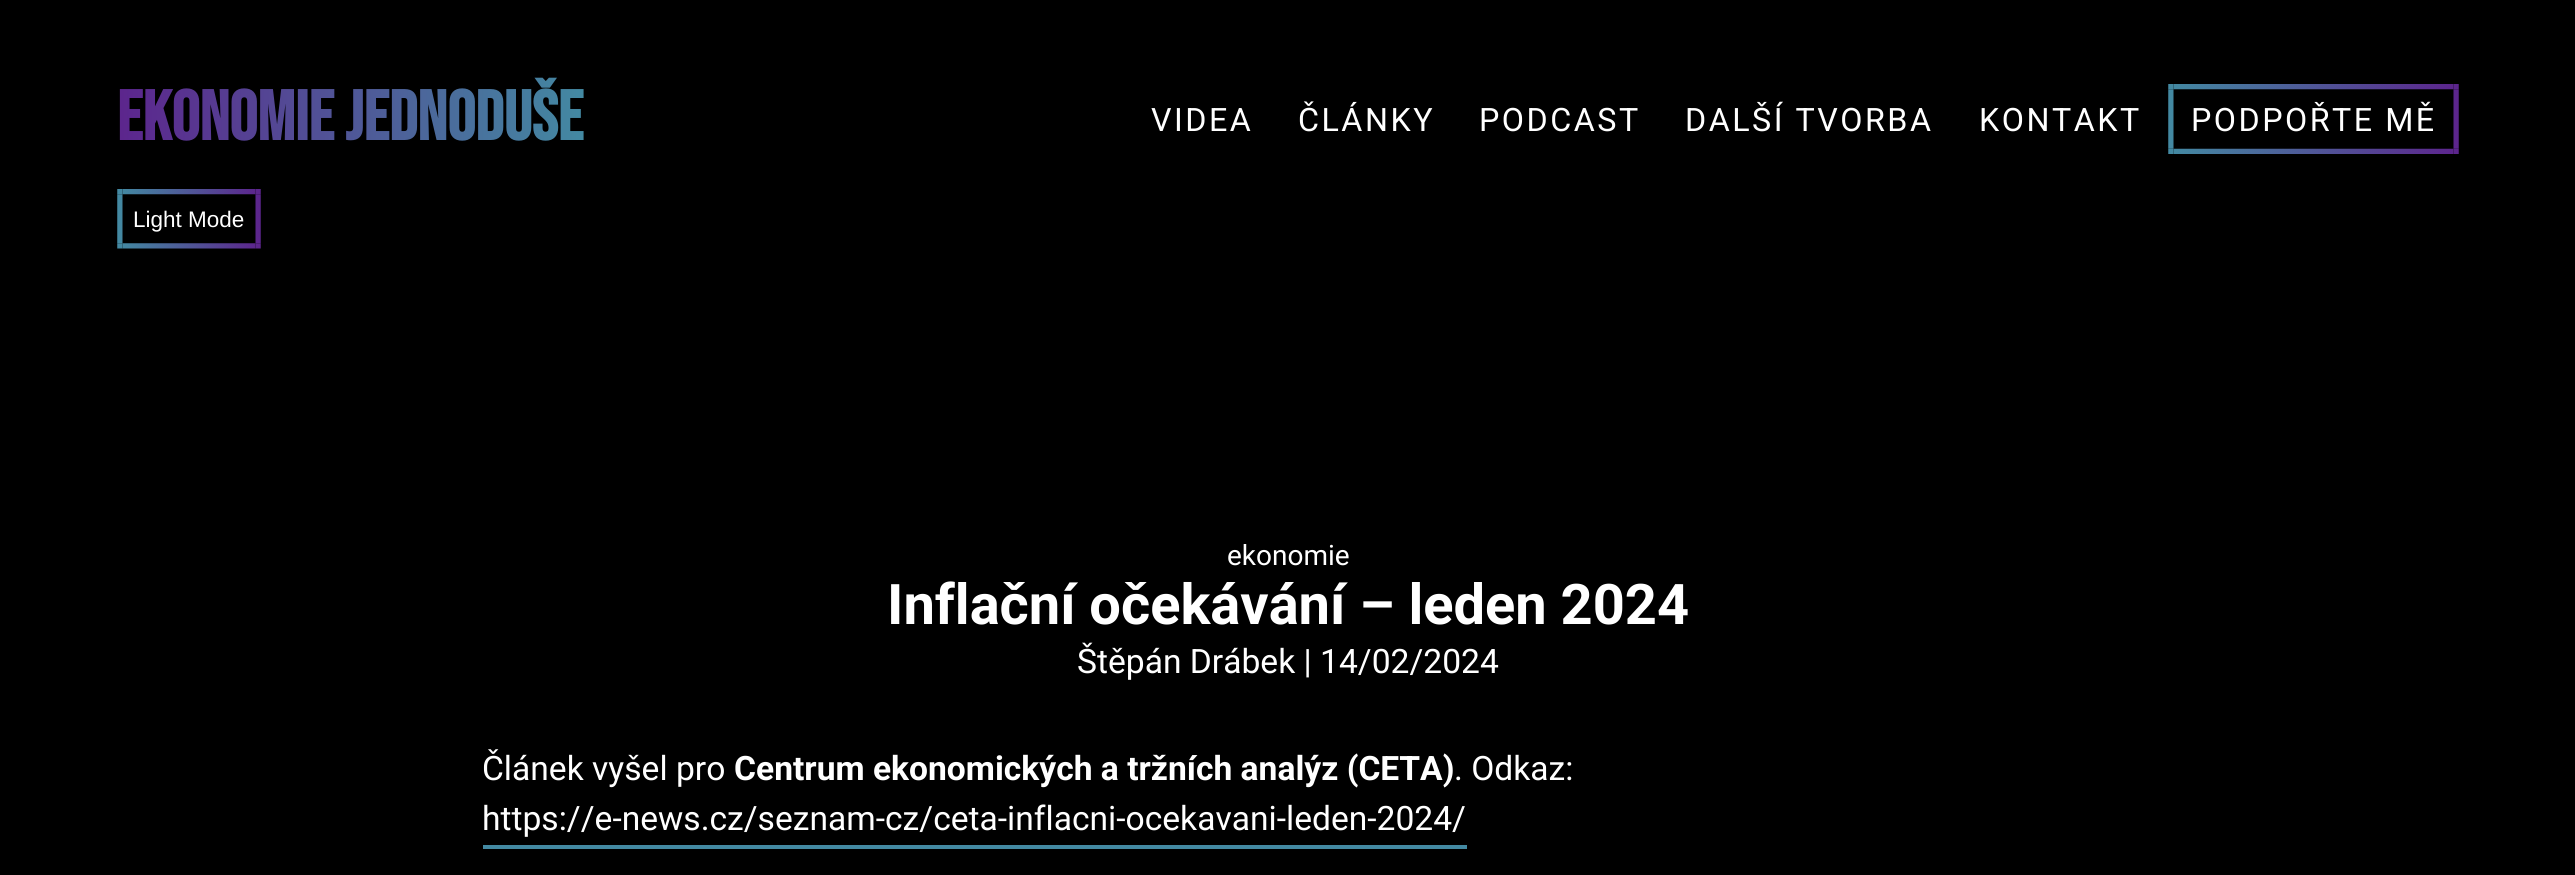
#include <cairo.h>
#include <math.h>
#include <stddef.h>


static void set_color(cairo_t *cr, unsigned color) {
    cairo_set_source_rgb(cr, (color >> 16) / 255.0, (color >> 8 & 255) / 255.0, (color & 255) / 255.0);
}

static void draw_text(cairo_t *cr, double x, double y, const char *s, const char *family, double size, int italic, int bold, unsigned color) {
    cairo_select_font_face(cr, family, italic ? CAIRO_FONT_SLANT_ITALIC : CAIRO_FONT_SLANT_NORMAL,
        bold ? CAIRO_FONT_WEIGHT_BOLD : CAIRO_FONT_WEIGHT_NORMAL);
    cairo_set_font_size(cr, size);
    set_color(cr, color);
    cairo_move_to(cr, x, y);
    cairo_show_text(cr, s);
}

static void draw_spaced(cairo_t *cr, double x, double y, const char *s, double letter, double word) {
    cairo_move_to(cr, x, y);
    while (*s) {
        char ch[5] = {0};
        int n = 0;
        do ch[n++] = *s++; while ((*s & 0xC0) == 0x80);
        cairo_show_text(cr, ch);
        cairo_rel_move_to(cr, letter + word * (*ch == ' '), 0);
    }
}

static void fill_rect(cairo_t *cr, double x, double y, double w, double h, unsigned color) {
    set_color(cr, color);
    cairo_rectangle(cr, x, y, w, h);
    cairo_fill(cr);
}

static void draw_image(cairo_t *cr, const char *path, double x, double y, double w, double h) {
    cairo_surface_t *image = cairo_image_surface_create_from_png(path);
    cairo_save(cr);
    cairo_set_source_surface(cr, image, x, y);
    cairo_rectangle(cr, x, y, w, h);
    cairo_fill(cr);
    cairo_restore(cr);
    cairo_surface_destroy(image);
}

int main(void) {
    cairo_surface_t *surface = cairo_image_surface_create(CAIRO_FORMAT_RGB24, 2575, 875);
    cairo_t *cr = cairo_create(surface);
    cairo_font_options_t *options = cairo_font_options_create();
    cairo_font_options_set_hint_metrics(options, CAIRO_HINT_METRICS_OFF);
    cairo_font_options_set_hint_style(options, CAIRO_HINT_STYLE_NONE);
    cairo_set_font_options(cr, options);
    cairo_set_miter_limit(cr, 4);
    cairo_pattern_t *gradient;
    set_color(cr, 0x000000);
    cairo_paint(cr);
    cairo_select_font_face(cr, "Bebas Neue", CAIRO_FONT_SLANT_NORMAL, CAIRO_FONT_WEIGHT_BOLD);
    cairo_set_font_size(cr, 70);
    gradient = cairo_pattern_create_linear(117, 119, 583, 119);
    cairo_pattern_add_color_stop_rgba(gradient, 0, 0.361, 0.145, 0.553, 1);
    cairo_pattern_add_color_stop_rgba(gradient, 1, 0.263, 0.537, 0.635, 1);
    cairo_set_source(cr, gradient);
    cairo_pattern_destroy(gradient);
    cairo_move_to(cr, 117, 140);
    cairo_show_text(cr, "Ekonomie Jednoduše");
    cairo_select_font_face(cr, "Roboto", CAIRO_FONT_SLANT_NORMAL, CAIRO_FONT_WEIGHT_NORMAL);
    cairo_set_font_size(cr, 32.25);
    set_color(cr, 0xFFFFFF);
    draw_spaced(cr, 1151, 131, "VIDEA", 2.5, 0);
    draw_spaced(cr, 1298, 131, "ČLÁNKY", 2.5, 0);
    draw_spaced(cr, 1479, 131, "PODCAST", 2.5, 0);
    draw_spaced(cr, 1685, 131, "DALŠÍ TVORBA", 2.5, 0);
    draw_spaced(cr, 1979, 131, "KONTAKT", 2.5, 0);
    draw_image(cr, "assets/img1.png", 2168, 84, 291, 70);
    draw_spaced(cr, 2191, 131, "PODPOŘTE MĚ", 2.5, 0);
    draw_image(cr, "assets/img2.png", 117, 189, 144, 60);
    draw_text(cr, 133, 227, "Light Mode", "Liberation Sans", 22.5, 0, 0, 0xFFFFFF);
    draw_text(cr, 1227, 565, "ekonomie", "Roboto", 28, 0, 0, 0xFFFFFF);
    draw_text(cr, 887, 624, "Inflační očekávání – leden 2024", "Roboto", 56, 0, 1, 0xFFFFFF);
    draw_text(cr, 1077, 673, "Štěpán Drábek | 14/02/2024", "Roboto", 33.6, 0, 0, 0xFFFFFF);
    draw_text(cr, 482, 780, "Článek vyšel pro", "Roboto", 33.6, 0, 0, 0xFFFFFF);
    draw_text(cr, 734, 780, "Centrum ekonomických a tržních analýz (CETA)", "Roboto", 33.6, 0, 1, 0xFFFFFF);
    draw_text(cr, 1454, 780, ". Odkaz:", "Roboto", 33.6, 0, 0, 0xFFFFFF);
    fill_rect(cr, 483, 845, 984, 4, 0x4389A2);
    draw_text(cr, 482, 830, "https://e-news.cz/seznam-cz/ceta-inflacni-ocekavani-leden-2024/", "Roboto", 33.6, 0, 0, 0xFFFFFF);
    cairo_surface_write_to_png(surface, "output.png");
    cairo_font_options_destroy(options);
    cairo_destroy(cr);
    cairo_surface_destroy(surface);
    return 0;
}
